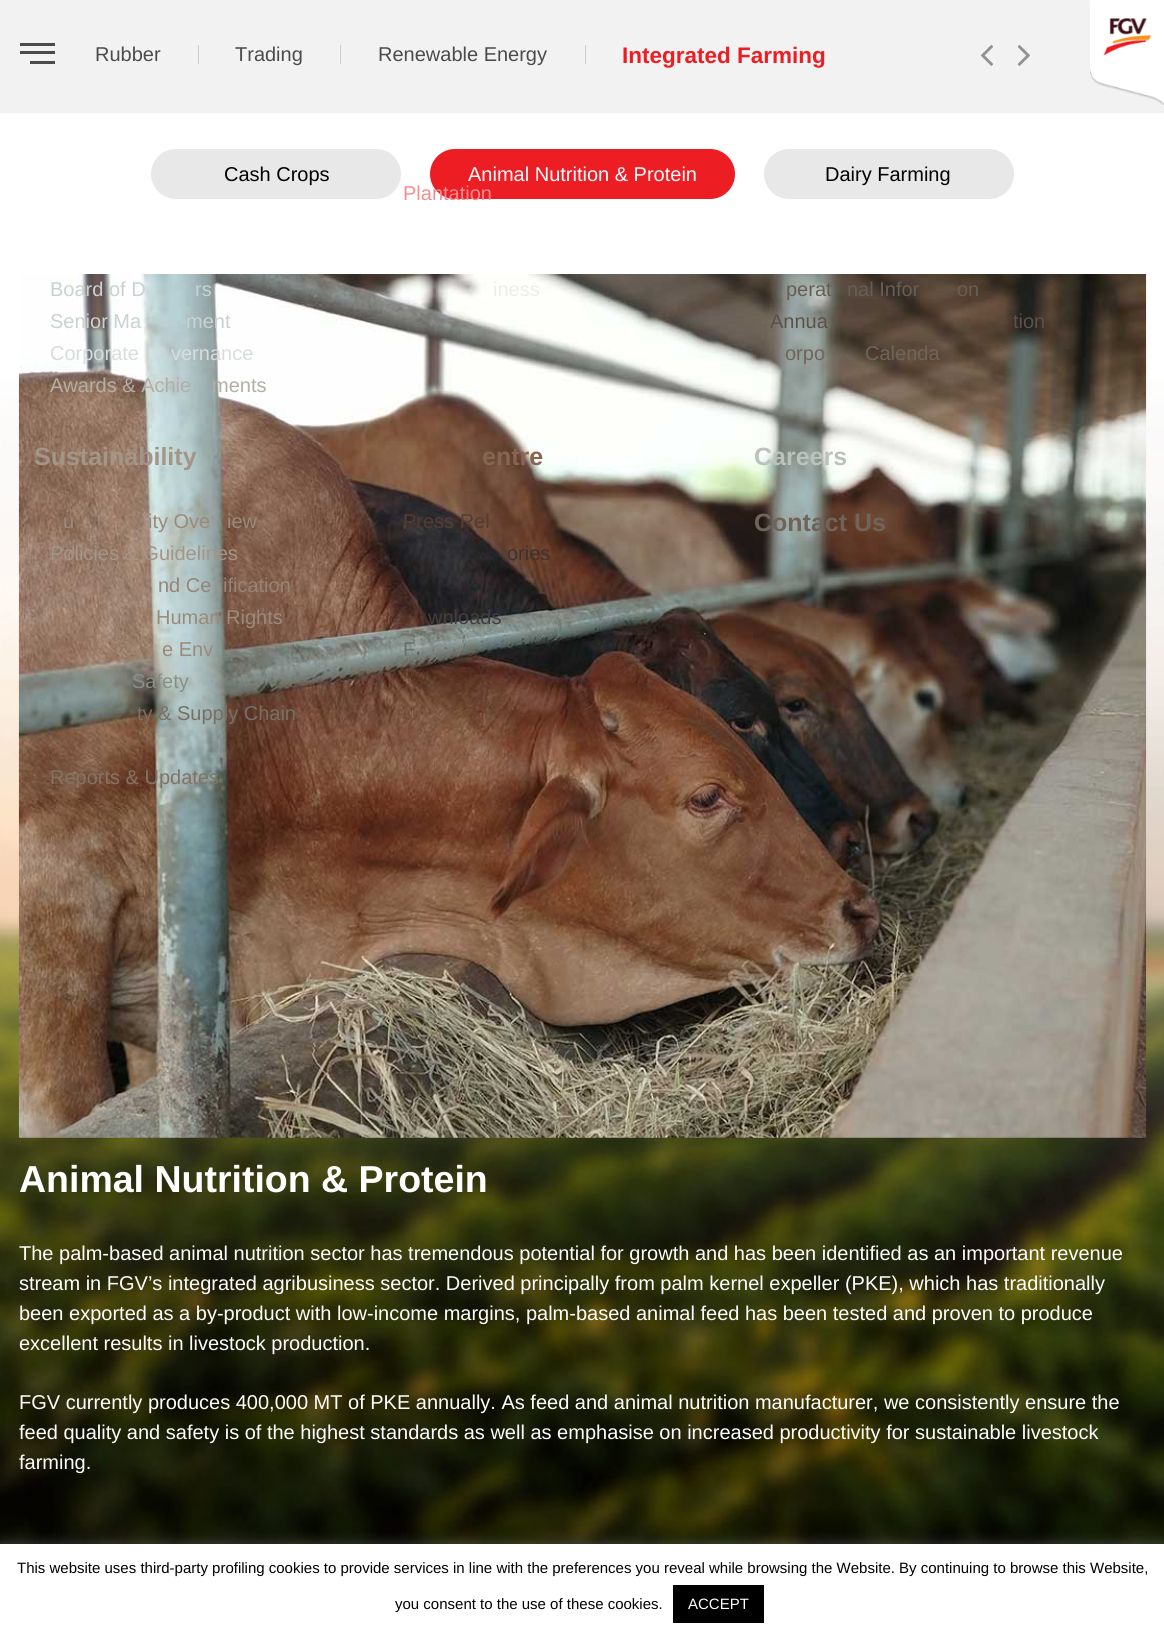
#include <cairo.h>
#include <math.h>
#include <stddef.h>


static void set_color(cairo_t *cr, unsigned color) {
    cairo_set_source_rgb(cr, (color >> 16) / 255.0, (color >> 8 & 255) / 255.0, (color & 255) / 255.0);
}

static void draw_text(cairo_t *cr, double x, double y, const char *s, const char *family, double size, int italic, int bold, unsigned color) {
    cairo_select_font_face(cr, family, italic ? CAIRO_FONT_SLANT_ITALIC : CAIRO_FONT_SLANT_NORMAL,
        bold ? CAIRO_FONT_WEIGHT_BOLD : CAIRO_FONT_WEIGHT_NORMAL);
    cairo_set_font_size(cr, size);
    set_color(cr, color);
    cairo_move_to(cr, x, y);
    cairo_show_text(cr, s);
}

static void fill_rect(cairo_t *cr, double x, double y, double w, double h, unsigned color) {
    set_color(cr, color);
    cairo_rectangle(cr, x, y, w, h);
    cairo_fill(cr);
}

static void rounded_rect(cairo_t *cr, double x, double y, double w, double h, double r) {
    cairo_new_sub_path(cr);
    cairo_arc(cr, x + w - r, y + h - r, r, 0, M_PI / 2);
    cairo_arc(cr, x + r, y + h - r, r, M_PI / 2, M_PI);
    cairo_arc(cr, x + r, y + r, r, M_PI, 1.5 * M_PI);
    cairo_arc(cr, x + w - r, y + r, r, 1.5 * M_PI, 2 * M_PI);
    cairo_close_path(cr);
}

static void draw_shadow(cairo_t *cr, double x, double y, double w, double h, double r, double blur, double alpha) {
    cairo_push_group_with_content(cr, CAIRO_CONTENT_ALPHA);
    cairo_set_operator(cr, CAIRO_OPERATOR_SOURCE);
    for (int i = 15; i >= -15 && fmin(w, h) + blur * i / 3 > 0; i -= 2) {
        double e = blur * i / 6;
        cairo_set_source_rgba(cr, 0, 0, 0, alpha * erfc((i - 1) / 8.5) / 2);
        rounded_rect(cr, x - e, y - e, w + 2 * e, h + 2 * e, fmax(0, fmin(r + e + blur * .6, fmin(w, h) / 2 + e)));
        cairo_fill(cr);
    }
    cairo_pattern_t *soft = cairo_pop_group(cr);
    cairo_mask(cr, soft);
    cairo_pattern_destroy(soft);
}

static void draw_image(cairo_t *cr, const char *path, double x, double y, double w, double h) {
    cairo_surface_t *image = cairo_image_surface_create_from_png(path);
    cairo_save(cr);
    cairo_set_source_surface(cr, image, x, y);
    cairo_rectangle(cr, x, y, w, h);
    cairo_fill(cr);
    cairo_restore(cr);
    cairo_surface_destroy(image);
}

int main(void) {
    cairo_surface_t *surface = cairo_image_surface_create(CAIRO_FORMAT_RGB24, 1164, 1643);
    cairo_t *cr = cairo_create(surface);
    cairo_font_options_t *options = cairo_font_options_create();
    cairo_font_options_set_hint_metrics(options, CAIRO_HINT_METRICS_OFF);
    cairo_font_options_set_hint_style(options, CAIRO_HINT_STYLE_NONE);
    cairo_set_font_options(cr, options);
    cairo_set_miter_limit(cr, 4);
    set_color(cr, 0xFFFFFF);
    cairo_paint(cr);
    fill_rect(cr, 0, 0, 1164, 113, 0xF2F2F2);
    draw_text(cr, 95, 61, "Rubber", "Liberation Sans", 20, 0, 0, 0x4B4B4B);
    fill_rect(cr, 198, 45, 1, 19, 0xCCCCCC);
    draw_text(cr, 235, 61, "Trading", "Liberation Sans", 20, 0, 0, 0x4B4B4B);
    fill_rect(cr, 340, 45, 1, 19, 0xCCCCCC);
    draw_text(cr, 378, 61, "Renewable Energy", "Liberation Sans", 20, 0, 0, 0x4B4B4B);
    fill_rect(cr, 585, 45, 1, 19, 0xCCCCCC);
    draw_text(cr, 622, 63, "Integrated Farming", "Liberation Sans", 22.5, 0, 1, 0xEC1D23);
    draw_image(cr, "assets/img1.png", 981, 45, 12, 21);
    draw_image(cr, "assets/img2.png", 1017, 45, 13, 21);
    draw_image(cr, "assets/img3.png", 0, 381, 1164, 1163);
    set_color(cr, 0xE8E8E8);
    rounded_rect(cr, 151, 149, 250, 50, 25);
    cairo_fill(cr);
    draw_text(cr, 224, 181, "Cash Crops", "Liberation Sans", 20, 0, 0, 0x000000);
    set_color(cr, 0xEC1D23);
    rounded_rect(cr, 430, 149, 305, 50, 25);
    cairo_fill(cr);
    draw_text(cr, 468, 181, "Animal Nutrition & Protein", "Liberation Sans", 20, 0, 0, 0xFFFFFF);
    set_color(cr, 0xE8E8E8);
    rounded_rect(cr, 764, 149, 250, 50, 25);
    cairo_fill(cr);
    draw_text(cr, 825, 181, "Dairy Farming", "Liberation Sans", 20, 0, 0, 0x000000);
    draw_image(cr, "assets/img4.png", 18, 274, 1129, 864);
    draw_text(cr, 19, 1192, "Animal Nutrition & Protein", "Liberation Sans", 37.5, 0, 1, 0xFFFFFF);
    draw_text(cr, 19, 1260, "The palm-based animal nutrition sector has tremendous potential for growth and has been identified as an important revenue", "Liberation Sans", 20, 0, 0, 0xFFFFFF);
    draw_text(cr, 19, 1290, "stream in FGV’s integrated agribusiness sector. Derived principally from palm kernel expeller (PKE), which has traditionally", "Liberation Sans", 20, 0, 0, 0xFFFFFF);
    draw_text(cr, 19, 1320, "been exported as a by-product with low-income margins, palm-based animal feed has been tested and proven to produce", "Liberation Sans", 20, 0, 0, 0xFFFFFF);
    draw_text(cr, 19, 1350, "excellent results in livestock production.", "Liberation Sans", 20, 0, 0, 0xFFFFFF);
    draw_text(cr, 19, 1409, "FGV currently produces 400,000 MT of PKE annually. As feed and animal nutrition manufacturer, we consistently ensure the", "Liberation Sans", 20, 0, 0, 0xFFFFFF);
    draw_text(cr, 19, 1439, "feed quality and safety is of the highest standards as well as emphasise on increased productivity for sustainable livestock", "Liberation Sans", 20, 0, 0, 0xFFFFFF);
    draw_text(cr, 19, 1469, "farming.", "Liberation Sans", 20, 0, 0, 0xFFFFFF);
    fill_rect(cr, 20, 43, 35, 3, 0x4B4B4B);
    fill_rect(cr, 20, 51, 35, 3, 0x4B4B4B);
    fill_rect(cr, 30, 61, 25, 3, 0x4B4B4B);
    draw_image(cr, "assets/img5.png", 1090, 0, 74, 105);
    draw_text(cr, 403, 200, "Plantation", "Liberation Sans", 20, 0, 0, 0xF58D91);
    draw_text(cr, 493, 296, "iness", "Liberation Sans", 20, 0, 0, 0xEDEDE9);
    draw_text(cr, 50, 296, "Board of D", "Liberation Sans", 20, 0, 0, 0xC9D1D3);
    draw_text(cr, 195, 296, "rs", "Liberation Sans", 20, 0, 0, 0xC9D1D3);
    draw_text(cr, 50, 328, "Senior Ma", "Liberation Sans", 20, 0, 0, 0xC9D1D3);
    draw_text(cr, 186, 328, "ment", "Liberation Sans", 20, 0, 0, 0xC9D1D3);
    draw_text(cr, 50, 360, "Corporate", "Liberation Sans", 20, 0, 0, 0xD7DDDE);
    draw_text(cr, 171, 360, "vernance", "Liberation Sans", 20, 0, 0, 0xD7DDDE);
    draw_text(cr, 50, 392, "Awards & Achie", "Liberation Sans", 20, 0, 0, 0xB3AEA6);
    draw_text(cr, 212, 392, "ments", "Liberation Sans", 20, 0, 0, 0xB3AEA6);
    draw_text(cr, 786, 296, "perat", "Liberation Sans", 20, 0, 0, 0x665E55);
    draw_text(cr, 847, 296, "nal Infor", "Liberation Sans", 20, 0, 0, 0x665E55);
    draw_text(cr, 957, 296, "on", "Liberation Sans", 20, 0, 0, 0x665E55);
    draw_text(cr, 770, 328, "Annua", "Liberation Sans", 20, 0, 0, 0x5C5146);
    draw_text(cr, 1013, 328, "tion", "Liberation Sans", 20, 0, 0, 0x5C5146);
    draw_text(cr, 785, 360, "orpo", "Liberation Sans", 20, 0, 0, 0x706459);
    draw_text(cr, 865, 360, "Calenda", "Liberation Sans", 20, 0, 0, 0x706459);
    draw_text(cr, 34, 465, "Sustainability", "Liberation Sans", 25, 0, 1, 0xA39588);
    draw_text(cr, 63, 528, "u", "Liberation Sans", 20, 0, 0, 0x9A8A7C);
    draw_text(cr, 148, 528, "ity Ove", "Liberation Sans", 20, 0, 0, 0x9A8A7C);
    draw_text(cr, 227, 528, "iew", "Liberation Sans", 20, 0, 0, 0x9A8A7C);
    draw_text(cr, 50, 560, "Policies & Guidelines", "Liberation Sans", 20, 0, 0, 0xA39588);
    draw_text(cr, 158, 592, "nd Ce", "Liberation Sans", 20, 0, 0, 0x978477);
    draw_text(cr, 223, 592, "ification", "Liberation Sans", 20, 0, 0, 0x978477);
    draw_text(cr, 156, 624, "Human Rights", "Liberation Sans", 20, 0, 0, 0x9A8A7C);
    draw_text(cr, 162, 656, "e Env", "Liberation Sans", 20, 0, 0, 0x9A8A7C);
    draw_text(cr, 132, 688, "Safety", "Liberation Sans", 20, 0, 0, 0x888F89);
    draw_text(cr, 137, 720, "ty & Supply Chain", "Liberation Sans", 20, 0, 0, 0x767066);
    draw_text(cr, 50, 784, "Reports & Updates", "Liberation Sans", 20, 0, 0, 0x827365);
    draw_text(cr, 482, 465, "entre", "Liberation Sans", 25, 0, 1, 0x866551);
    draw_text(cr, 403, 528, "Press Rel", "Liberation Sans", 20, 0, 0, 0x543C32);
    draw_text(cr, 507, 560, "ories", "Liberation Sans", 20, 0, 0, 0x40322E);
    draw_text(cr, 428, 624, "wnloads", "Liberation Sans", 20, 0, 0, 0x433E3C);
    draw_text(cr, 403, 656, "F", "Liberation Sans", 20, 0, 0, 0x676F6C);
    draw_text(cr, 754, 465, "Careers", "Liberation Sans", 25, 0, 1, 0xB9C2BB);
    draw_text(cr, 754, 531, "Contact Us", "Liberation Sans", 25, 0, 1, 0x706459);
    set_color(cr, 0xACABAB);
    draw_shadow(cr, 0, 1543, 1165, 100, 0, 6, 0.3);
    fill_rect(cr, 0, 1544, 1164, 99, 0xFFFFFF);
    draw_text(cr, 17, 1573, "This website uses third-party profiling cookies to provide services in line with the preferences you reveal while browsing the Website. By continuing to browse this Website,", "Liberation Sans", 15, 0, 0, 0x000000);
    draw_text(cr, 395, 1609, "you consent to the use of these cookies.", "Liberation Sans", 15, 0, 0, 0x000000);
    fill_rect(cr, 673, 1585, 91, 38, 0x000000);
    draw_text(cr, 688, 1609, "ACCEPT", "Liberation Sans", 15, 0, 0, 0xFFFFFF);
    cairo_surface_write_to_png(surface, "output.png");
    cairo_font_options_destroy(options);
    cairo_destroy(cr);
    cairo_surface_destroy(surface);
    return 0;
}
